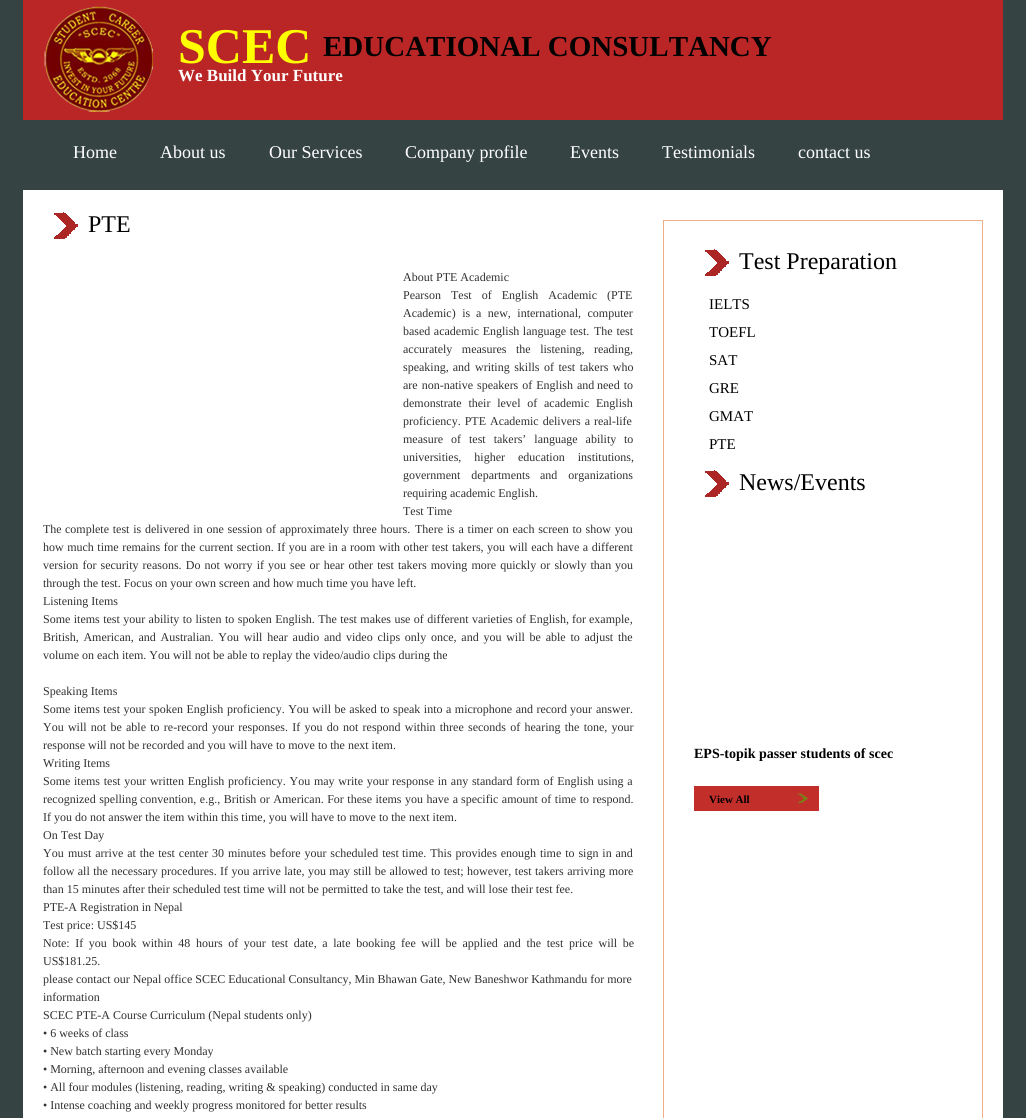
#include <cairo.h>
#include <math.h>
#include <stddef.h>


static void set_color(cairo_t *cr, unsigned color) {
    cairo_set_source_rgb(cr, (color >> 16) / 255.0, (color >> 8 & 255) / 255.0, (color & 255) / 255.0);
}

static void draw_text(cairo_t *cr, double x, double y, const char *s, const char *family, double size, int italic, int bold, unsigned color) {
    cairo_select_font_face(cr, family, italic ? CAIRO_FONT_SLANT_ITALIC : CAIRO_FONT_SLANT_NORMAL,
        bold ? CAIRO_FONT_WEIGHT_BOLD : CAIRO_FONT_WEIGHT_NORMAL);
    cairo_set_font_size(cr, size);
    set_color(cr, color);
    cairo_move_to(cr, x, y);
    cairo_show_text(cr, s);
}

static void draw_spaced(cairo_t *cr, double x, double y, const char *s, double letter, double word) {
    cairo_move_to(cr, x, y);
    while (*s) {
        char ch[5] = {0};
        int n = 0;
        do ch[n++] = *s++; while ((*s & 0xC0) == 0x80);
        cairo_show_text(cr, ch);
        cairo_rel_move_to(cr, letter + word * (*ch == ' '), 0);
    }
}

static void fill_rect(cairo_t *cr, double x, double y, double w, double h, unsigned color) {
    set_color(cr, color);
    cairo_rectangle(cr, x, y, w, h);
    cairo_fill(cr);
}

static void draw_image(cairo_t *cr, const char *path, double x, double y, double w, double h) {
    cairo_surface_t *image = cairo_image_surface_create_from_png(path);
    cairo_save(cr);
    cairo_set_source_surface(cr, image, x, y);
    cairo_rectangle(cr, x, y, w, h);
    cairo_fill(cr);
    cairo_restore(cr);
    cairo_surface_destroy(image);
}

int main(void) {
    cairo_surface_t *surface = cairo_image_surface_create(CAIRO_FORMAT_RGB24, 1026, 1118);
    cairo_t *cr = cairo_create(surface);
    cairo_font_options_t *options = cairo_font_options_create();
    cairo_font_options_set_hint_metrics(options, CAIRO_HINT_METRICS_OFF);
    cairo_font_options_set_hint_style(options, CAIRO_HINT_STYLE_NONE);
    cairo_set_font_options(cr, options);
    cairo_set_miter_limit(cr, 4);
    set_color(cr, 0x354443);
    cairo_paint(cr);
    fill_rect(cr, 23, 0, 980, 120, 0xBA2626);
    draw_image(cr, "assets/img1.png", 44, 6, 109, 106);
    draw_text(cr, 178, 63, "SCEC", "Liberation Serif", 50, 0, 1, 0xFFFF00);
    draw_text(cr, 323, 56, "EDUCATIONAL CONSULTANCY", "Liberation Serif", 29, 0, 1, 0x000000);
    draw_text(cr, 178, 81, "We Build Your Future", "Liberation Serif", 17, 0, 1, 0xFFFFFF);
    draw_text(cr, 73, 158, "Home", "Liberation Serif", 18, 0, 0, 0xFFFFFF);
    draw_text(cr, 160, 158, "About us", "Liberation Serif", 18, 0, 0, 0xFFFFFF);
    draw_text(cr, 269, 158, "Our Services", "Liberation Serif", 18, 0, 0, 0xFFFFFF);
    draw_text(cr, 405, 158, "Company profile", "Liberation Serif", 18, 0, 0, 0xFFFFFF);
    draw_text(cr, 570, 158, "Events", "Liberation Serif", 18, 0, 0, 0xFFFFFF);
    draw_text(cr, 662, 158, "Testimonials", "Liberation Serif", 18, 0, 0, 0xFFFFFF);
    draw_text(cr, 798, 158, "contact us", "Liberation Serif", 18, 0, 0, 0xFFFFFF);
    fill_rect(cr, 23, 190, 980, 928, 0xFFFFFF);
    draw_image(cr, "assets/img2.png", 54, 212, 24, 27);
    draw_text(cr, 88, 232, "PTE", "Liberation Serif", 24, 0, 0, 0x000000);
    draw_text(cr, 403, 281, "About PTE Academic", "Liberation Serif", 12, 0, 0, 0x303030);
    draw_spaced(cr, 403, 299, "Pearson Test of English Academic (PTE", 0, 7);
    draw_spaced(cr, 403, 317, "Academic) is", 0, 3.5);
    draw_spaced(cr, 476, 317, "a new, international, computer", 0, 3.5);
    draw_spaced(cr, 403, 335, "based academic English language test.", 0, 0.5);
    draw_spaced(cr, 594, 335, "The test", 0, 0.75);
    draw_spaced(cr, 403, 353, "accurately measures the listening, reading,", 0, 6.5);
    draw_spaced(cr, 403, 371, "speaking, and", 0, 1);
    draw_spaced(cr, 475, 371, "writing skills of test takers who", 0, 1.5);
    draw_spaced(cr, 403, 389, "are non-native speakers of English and", 0, 1);
    draw_spaced(cr, 597, 389, "need to", 0, 1);
    draw_spaced(cr, 403, 407, "demonstrate their level of academic English", 0, 3.75);
    draw_spaced(cr, 403, 425, "proficiency. PTE", 0, 1);
    draw_spaced(cr, 490, 425, "Academic delivers a real-life", 0, 1);
    draw_spaced(cr, 403, 443, "measure of test takers’ language ability", 0, 5);
    draw_text(cr, 624, 443, "to", "Liberation Serif", 12, 0, 0, 0x303030);
    draw_spaced(cr, 403, 461, "universities, higher education institutions,", 0, 10);
    draw_spaced(cr, 403, 479, "government departments", 0, 8);
    draw_spaced(cr, 540, 479, "and organizations", 0, 8);
    draw_text(cr, 403, 497, "requiring academic English.", "Liberation Serif", 12, 0, 0, 0x303030);
    draw_text(cr, 403, 515, "Test Time", "Liberation Serif", 12, 0, 0, 0x303030);
    draw_text(cr, 43, 533, "The", "Liberation Serif", 12, 0, 0, 0x303030);
    draw_spaced(cr, 65, 533, "complete test is delivered in one session of approximately three hours.", 0, 0.75);
    draw_spaced(cr, 415, 533, "There is a timer on each screen to show you", 0, 0.75);
    draw_spaced(cr, 43, 551, "how much time remains for", 0, 0.5);
    draw_spaced(cr, 181, 551, "the current section. If you are in a room with other test takers, you", 0, 0.5);
    draw_spaced(cr, 509, 551, "will each have a different", 0, 0.5);
    draw_spaced(cr, 43, 569, "version for security reasons. Do not worry if", 0, 1.1);
    draw_spaced(cr, 268, 569, "you see or hear other test takers moving more quickly or slowly than", 0, 1.1);
    draw_text(cr, 615, 569, "you", "Liberation Serif", 12, 0, 0, 0x303030);
    draw_text(cr, 43, 587, "through the test. Focus on your own screen and how much time you have left.", "Liberation Serif", 12, 0, 0, 0x303030);
    draw_text(cr, 43, 605, "Listening Items", "Liberation Serif", 12, 0, 0, 0x303030);
    draw_spaced(cr, 43, 623, "Some items test your ability to listen", 0, 0.4);
    draw_spaced(cr, 225, 623, "to spoken English. The test makes use of different varieties of English,", 0, 0.4);
    draw_text(cr, 572, 623, "for example,", "Liberation Serif", 12, 0, 0, 0x303030);
    draw_spaced(cr, 43, 641, "British, American, and Australian. You will hear audio and", 0, 1.75);
    draw_spaced(cr, 346, 641, "video clips only once, and you will be able to adjust the", 0, 1.75);
    draw_text(cr, 43, 659, "volume on each item. You will not be able to replay the video/audio clips during the", "Liberation Serif", 12, 0, 0, 0x303030);
    draw_text(cr, 43, 695, "Speaking Items", "Liberation Serif", 12, 0, 0, 0x303030);
    draw_spaced(cr, 43, 713, "Some items test your spoken English", 0, 0.5);
    draw_spaced(cr, 227, 713, "proficiency. You will be asked to speak into a microphone and record", 0, 0.5);
    draw_spaced(cr, 570, 713, "your answer.", 0, 1);
    draw_spaced(cr, 43, 731, "You will not be able to re-record your responses. If you do", 0, 1.25);
    draw_spaced(cr, 343, 731, "not respond within three seconds of hearing the tone, your", 0, 1.25);
    draw_text(cr, 43, 749, "response will not be recorded and you will have to move to the next item.", "Liberation Serif", 12, 0, 0, 0x303030);
    draw_text(cr, 43, 767, "Writing Items", "Liberation Serif", 12, 0, 0, 0x303030);
    draw_text(cr, 43, 785, "Some", "Liberation Serif", 12, 0, 0, 0x303030);
    draw_spaced(cr, 74, 785, "items test your written English proficiency. You may write your", 0, 0.75);
    draw_spaced(cr, 392, 785, "response in any standard form of English using a", 0, 0.75);
    draw_spaced(cr, 43, 803, "recognized spelling", 0, 0.5);
    draw_spaced(cr, 140, 803, "convention, e.g., British or American. For these items you have a", 0, 0.5);
    draw_spaced(cr, 461, 803, "specific amount of time to respond.", 0, 0.5);
    draw_text(cr, 43, 821, "If you do not answer the item within this time, you will have to move to the next item.", "Liberation Serif", 12, 0, 0, 0x303030);
    draw_text(cr, 43, 839, "On Test Day", "Liberation Serif", 12, 0, 0, 0x303030);
    draw_text(cr, 43, 857, "You", "Liberation Serif", 12, 0, 0, 0x303030);
    draw_spaced(cr, 68, 857, "must arrive at the test center 30 minutes before your scheduled test", 0, 0.9);
    draw_spaced(cr, 402, 857, "time. This provides enough time to sign in and", 0, 0.9);
    draw_spaced(cr, 43, 875, "follow all the necessary", 0, 0.4);
    draw_spaced(cr, 161, 875, "procedures. If you arrive late, you may still be allowed to test;", 0, 0.4);
    draw_spaced(cr, 467, 875, "however, test takers arriving more", 0, 0.5);
    draw_text(cr, 43, 893, "than 15 minutes after their scheduled test time will not be permitted to take the test, and will lose their test fee.", "Liberation Serif", 12, 0, 0, 0x303030);
    draw_text(cr, 43, 911, "PTE-A Registration in Nepal", "Liberation Serif", 12, 0, 0, 0x303030);
    draw_text(cr, 43, 929, "Test price: US$145", "Liberation Serif", 12, 0, 0, 0x303030);
    draw_spaced(cr, 43, 947, "Note: If you book within 48 hours of your test date, a late booking fee will be applied and the test price will be", 0, 2.6);
    draw_text(cr, 43, 965, "US$181.25.", "Liberation Serif", 12, 0, 0, 0x303030);
    draw_text(cr, 43, 983, "please contact our Nepal office SCEC Educational Consultancy, Min Bhawan Gate, New Baneshwor Kathmandu for more", "Liberation Serif", 12, 0, 0, 0x303030);
    draw_text(cr, 43, 1001, "information", "Liberation Serif", 12, 0, 0, 0x303030);
    draw_text(cr, 43, 1019, "SCEC PTE-A Course Curriculum (Nepal students only)", "Liberation Serif", 12, 0, 0, 0x303030);
    draw_text(cr, 43, 1037, "• 6 weeks of class", "Liberation Serif", 12, 0, 0, 0x303030);
    draw_text(cr, 43, 1055, "• New batch starting every Monday", "Liberation Serif", 12, 0, 0, 0x303030);
    draw_text(cr, 43, 1073, "• Morning, afternoon and evening classes available", "Liberation Serif", 12, 0, 0, 0x303030);
    draw_text(cr, 43, 1091, "• All four modules (listening, reading, writing & speaking) conducted in same day", "Liberation Serif", 12, 0, 0, 0x303030);
    draw_text(cr, 43, 1109, "• Intense coaching and weekly progress monitored for better results", "Liberation Serif", 12, 0, 0, 0x303030);
    cairo_rectangle(cr, 663.5, 220.5, 319, 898);
    set_color(cr, 0xEFAE86);
    cairo_set_line_width(cr, 1);
    cairo_stroke(cr);
    draw_image(cr, "assets/img2.png", 705, 249, 24, 27);
    draw_text(cr, 739, 269, "Test Preparation", "Liberation Serif", 24, 0, 0, 0x000000);
    draw_text(cr, 709, 309, "IELTS", "Liberation Serif", 15, 0, 0, 0x000000);
    draw_text(cr, 709, 337, "TOEFL", "Liberation Serif", 15, 0, 0, 0x000000);
    draw_text(cr, 709, 365, "SAT", "Liberation Serif", 15, 0, 0, 0x000000);
    draw_text(cr, 709, 393, "GRE", "Liberation Serif", 15, 0, 0, 0x000000);
    draw_text(cr, 709, 421, "GMAT", "Liberation Serif", 15, 0, 0, 0x000000);
    draw_text(cr, 709, 449, "PTE", "Liberation Serif", 15, 0, 0, 0x000000);
    draw_image(cr, "assets/img2.png", 705, 470, 24, 27);
    draw_text(cr, 739, 490, "News/Events", "Liberation Serif", 24, 0, 0, 0x000000);
    draw_text(cr, 694, 758, "EPS-topik passer students of scec", "Liberation Serif", 14, 0, 1, 0x000000);
    draw_image(cr, "assets/img3.png", 694, 786, 125, 25);
    draw_text(cr, 709, 803, "View All", "Liberation Serif", 11, 0, 1, 0x000000);
    cairo_surface_write_to_png(surface, "output.png");
    cairo_font_options_destroy(options);
    cairo_destroy(cr);
    cairo_surface_destroy(surface);
    return 0;
}
